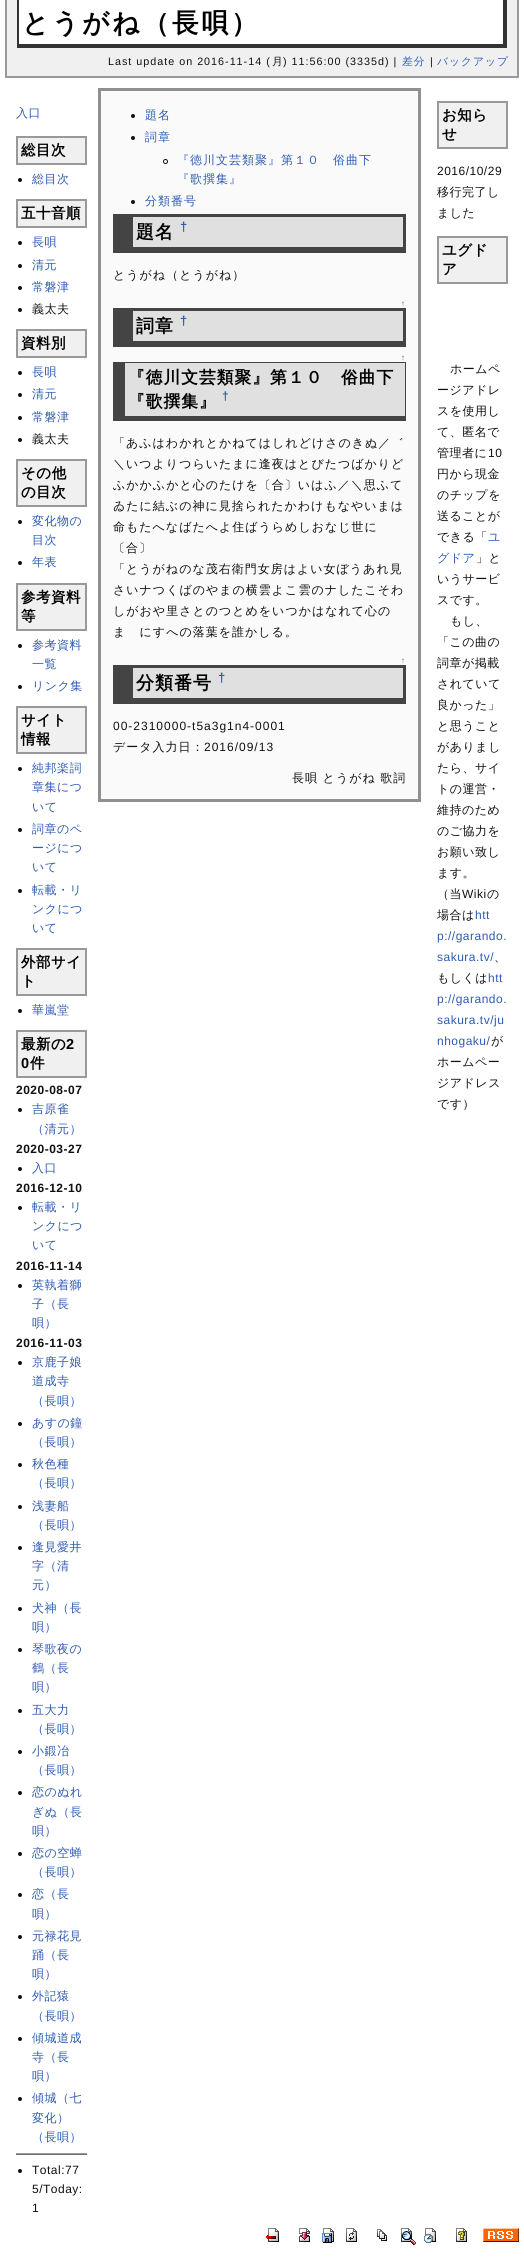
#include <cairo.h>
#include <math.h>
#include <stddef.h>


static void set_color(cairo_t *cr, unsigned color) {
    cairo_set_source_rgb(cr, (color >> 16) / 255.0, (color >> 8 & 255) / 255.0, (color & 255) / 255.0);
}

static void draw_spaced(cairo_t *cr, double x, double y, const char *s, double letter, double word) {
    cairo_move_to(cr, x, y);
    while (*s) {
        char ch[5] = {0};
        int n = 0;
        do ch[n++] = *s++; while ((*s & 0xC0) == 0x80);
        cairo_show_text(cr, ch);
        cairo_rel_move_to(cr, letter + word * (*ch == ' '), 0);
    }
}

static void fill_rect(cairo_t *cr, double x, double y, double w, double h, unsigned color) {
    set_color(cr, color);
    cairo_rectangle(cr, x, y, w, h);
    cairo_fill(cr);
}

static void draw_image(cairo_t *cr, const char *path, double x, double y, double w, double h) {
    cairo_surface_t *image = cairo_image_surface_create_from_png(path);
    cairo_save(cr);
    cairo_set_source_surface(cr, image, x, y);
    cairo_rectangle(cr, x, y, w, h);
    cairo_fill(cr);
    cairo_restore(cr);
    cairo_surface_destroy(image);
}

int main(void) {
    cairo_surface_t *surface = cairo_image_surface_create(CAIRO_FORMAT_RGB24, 524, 2261);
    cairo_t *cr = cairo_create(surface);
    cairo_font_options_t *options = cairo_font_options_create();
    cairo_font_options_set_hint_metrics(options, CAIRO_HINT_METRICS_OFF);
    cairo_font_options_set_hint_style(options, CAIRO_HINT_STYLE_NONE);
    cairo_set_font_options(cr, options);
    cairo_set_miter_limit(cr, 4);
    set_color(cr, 0xFFFFFF);
    cairo_paint(cr);
    set_color(cr, 0xF0F0F0);
    cairo_rectangle(cr, 6, -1, 512, 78);
    cairo_fill_preserve(cr);
    set_color(cr, 0x999999);
    cairo_stroke(cr);
    fill_rect(cr, 19, 0, 484, 44, 0xFFFFFF);
    fill_rect(cr, 503, 0, 4, 48, 0x333333);
    fill_rect(cr, 17, 44, 490, 4, 0x333333);
    fill_rect(cr, 17, 0, 2, 48, 0x333333);
    cairo_select_font_face(cr, "WenQuanYi Zen Hei", CAIRO_FONT_SLANT_NORMAL, CAIRO_FONT_WEIGHT_BOLD);
    cairo_set_font_size(cr, 26.5);
    set_color(cr, 0x000000);
    draw_spaced(cr, 22, 32, "とうがね（長唄）", 3, 0);
    cairo_select_font_face(cr, "Liberation Sans", CAIRO_FONT_SLANT_NORMAL, CAIRO_FONT_WEIGHT_NORMAL);
    cairo_set_font_size(cr, 10.75);
    set_color(cr, 0x101010);
    draw_spaced(cr, 108, 65, "Last update on 2016-11-14 (", 1, 0);
    cairo_select_font_face(cr, "WenQuanYi Zen Hei Medium", CAIRO_FONT_SLANT_NORMAL, CAIRO_FONT_WEIGHT_NORMAL);
    draw_spaced(cr, 272, 65, "月", 1, 0);
    cairo_select_font_face(cr, "Liberation Sans", CAIRO_FONT_SLANT_NORMAL, CAIRO_FONT_WEIGHT_NORMAL);
    draw_spaced(cr, 283, 65, ") 11:56:00 (3335d) |", 1, 0);
    cairo_select_font_face(cr, "WenQuanYi Zen Hei Medium", CAIRO_FONT_SLANT_NORMAL, CAIRO_FONT_WEIGHT_NORMAL);
    set_color(cr, 0x2F5BB3);
    draw_spaced(cr, 402, 65, "差分", 1, 0);
    cairo_select_font_face(cr, "Liberation Sans", CAIRO_FONT_SLANT_NORMAL, CAIRO_FONT_WEIGHT_NORMAL);
    set_color(cr, 0x101010);
    draw_spaced(cr, 430, 65, "|", 1, 0);
    cairo_select_font_face(cr, "WenQuanYi Zen Hei Medium", CAIRO_FONT_SLANT_NORMAL, CAIRO_FONT_WEIGHT_NORMAL);
    set_color(cr, 0x2F5BB3);
    draw_spaced(cr, 437, 65, "バックアップ", 1, 0);
    cairo_set_font_size(cr, 12);
    draw_spaced(cr, 16, 117, "入口", 0.5, 0);
    set_color(cr, 0xF0F0F0);
    cairo_rectangle(cr, 17, 137, 69, 27);
    cairo_fill_preserve(cr);
    set_color(cr, 0x999999);
    cairo_stroke(cr);
    cairo_select_font_face(cr, "WenQuanYi Zen Hei", CAIRO_FONT_SLANT_NORMAL, CAIRO_FONT_WEIGHT_BOLD);
    cairo_set_font_size(cr, 14.5);
    set_color(cr, 0x000000);
    draw_spaced(cr, 21, 155, "総目次", 0.5, 0);
    set_color(cr, 0x101010);
    cairo_new_path(cr);
    cairo_arc(cr, 20, 180, 2, 0, 2 * M_PI);
    cairo_fill(cr);
    cairo_select_font_face(cr, "WenQuanYi Zen Hei Medium", CAIRO_FONT_SLANT_NORMAL, CAIRO_FONT_WEIGHT_NORMAL);
    cairo_set_font_size(cr, 12);
    set_color(cr, 0x2F5BB3);
    draw_spaced(cr, 32, 183, "総目次", 0.5, 0);
    set_color(cr, 0xF0F0F0);
    cairo_rectangle(cr, 17, 200, 69, 27);
    cairo_fill_preserve(cr);
    set_color(cr, 0x999999);
    cairo_stroke(cr);
    cairo_select_font_face(cr, "WenQuanYi Zen Hei", CAIRO_FONT_SLANT_NORMAL, CAIRO_FONT_WEIGHT_BOLD);
    cairo_set_font_size(cr, 14.5);
    set_color(cr, 0x000000);
    draw_spaced(cr, 21, 218, "五十音順", 0.5, 0);
    set_color(cr, 0x101010);
    cairo_new_path(cr);
    cairo_arc(cr, 20, 243, 2, 0, 2 * M_PI);
    cairo_fill(cr);
    cairo_select_font_face(cr, "WenQuanYi Zen Hei Medium", CAIRO_FONT_SLANT_NORMAL, CAIRO_FONT_WEIGHT_NORMAL);
    cairo_set_font_size(cr, 12);
    set_color(cr, 0x2F5BB3);
    draw_spaced(cr, 32, 246, "長唄", 0.5, 0);
    set_color(cr, 0x101010);
    cairo_new_path(cr);
    cairo_arc(cr, 20, 266, 2, 0, 2 * M_PI);
    cairo_fill(cr);
    set_color(cr, 0x2F5BB3);
    draw_spaced(cr, 32, 269, "清元", 0.5, 0);
    set_color(cr, 0x101010);
    cairo_new_path(cr);
    cairo_arc(cr, 20, 288, 2, 0, 2 * M_PI);
    cairo_fill(cr);
    set_color(cr, 0x2F5BB3);
    draw_spaced(cr, 32, 291, "常磐津", 0.5, 0);
    set_color(cr, 0x101010);
    cairo_new_path(cr);
    cairo_arc(cr, 20, 310, 2, 0, 2 * M_PI);
    cairo_fill(cr);
    draw_spaced(cr, 32, 313, "義太夫", 0.5, 0);
    set_color(cr, 0xF0F0F0);
    cairo_rectangle(cr, 17, 330, 69, 27);
    cairo_fill_preserve(cr);
    set_color(cr, 0x999999);
    cairo_stroke(cr);
    cairo_select_font_face(cr, "WenQuanYi Zen Hei", CAIRO_FONT_SLANT_NORMAL, CAIRO_FONT_WEIGHT_BOLD);
    cairo_set_font_size(cr, 14.5);
    set_color(cr, 0x000000);
    draw_spaced(cr, 21, 348, "資料別", 0.5, 0);
    set_color(cr, 0x101010);
    cairo_new_path(cr);
    cairo_arc(cr, 20, 373, 2, 0, 2 * M_PI);
    cairo_fill(cr);
    cairo_select_font_face(cr, "WenQuanYi Zen Hei Medium", CAIRO_FONT_SLANT_NORMAL, CAIRO_FONT_WEIGHT_NORMAL);
    cairo_set_font_size(cr, 12);
    set_color(cr, 0x2F5BB3);
    draw_spaced(cr, 32, 376, "長唄", 0.5, 0);
    set_color(cr, 0x101010);
    cairo_new_path(cr);
    cairo_arc(cr, 20, 395, 2, 0, 2 * M_PI);
    cairo_fill(cr);
    set_color(cr, 0x2F5BB3);
    draw_spaced(cr, 32, 398, "清元", 0.5, 0);
    set_color(cr, 0x101010);
    cairo_new_path(cr);
    cairo_arc(cr, 20, 418, 2, 0, 2 * M_PI);
    cairo_fill(cr);
    set_color(cr, 0x2F5BB3);
    draw_spaced(cr, 32, 421, "常磐津", 0.5, 0);
    set_color(cr, 0x101010);
    cairo_new_path(cr);
    cairo_arc(cr, 20, 440, 2, 0, 2 * M_PI);
    cairo_fill(cr);
    draw_spaced(cr, 32, 443, "義太夫", 0.5, 0);
    set_color(cr, 0xF0F0F0);
    cairo_rectangle(cr, 17, 460, 69, 46);
    cairo_fill_preserve(cr);
    set_color(cr, 0x999999);
    cairo_stroke(cr);
    cairo_select_font_face(cr, "WenQuanYi Zen Hei", CAIRO_FONT_SLANT_NORMAL, CAIRO_FONT_WEIGHT_BOLD);
    cairo_set_font_size(cr, 14.5);
    set_color(cr, 0x000000);
    draw_spaced(cr, 21, 478, "その他", 0.5, 0);
    draw_spaced(cr, 21, 497, "の目次", 0.5, 0);
    set_color(cr, 0x101010);
    cairo_new_path(cr);
    cairo_arc(cr, 20, 522, 2, 0, 2 * M_PI);
    cairo_fill(cr);
    cairo_select_font_face(cr, "WenQuanYi Zen Hei Medium", CAIRO_FONT_SLANT_NORMAL, CAIRO_FONT_WEIGHT_NORMAL);
    cairo_set_font_size(cr, 12);
    set_color(cr, 0x2F5BB3);
    draw_spaced(cr, 32, 525, "変化物の", 0.5, 0);
    draw_spaced(cr, 32, 544, "目次", 0.5, 0);
    set_color(cr, 0x101010);
    cairo_new_path(cr);
    cairo_arc(cr, 20, 563, 2, 0, 2 * M_PI);
    cairo_fill(cr);
    set_color(cr, 0x2F5BB3);
    draw_spaced(cr, 32, 566, "年表", 0.5, 0);
    set_color(cr, 0xF0F0F0);
    cairo_rectangle(cr, 17, 584, 69, 46);
    cairo_fill_preserve(cr);
    set_color(cr, 0x999999);
    cairo_stroke(cr);
    cairo_select_font_face(cr, "WenQuanYi Zen Hei", CAIRO_FONT_SLANT_NORMAL, CAIRO_FONT_WEIGHT_BOLD);
    cairo_set_font_size(cr, 14.5);
    set_color(cr, 0x000000);
    draw_spaced(cr, 21, 602, "参考資料", 0.5, 0);
    draw_spaced(cr, 21, 621, "等", 0.5, 0);
    set_color(cr, 0x101010);
    cairo_new_path(cr);
    cairo_arc(cr, 20, 646, 2, 0, 2 * M_PI);
    cairo_fill(cr);
    cairo_select_font_face(cr, "WenQuanYi Zen Hei Medium", CAIRO_FONT_SLANT_NORMAL, CAIRO_FONT_WEIGHT_NORMAL);
    cairo_set_font_size(cr, 12);
    set_color(cr, 0x2F5BB3);
    draw_spaced(cr, 32, 649, "参考資料", 0.5, 0);
    draw_spaced(cr, 32, 668, "一覧", 0.5, 0);
    set_color(cr, 0x101010);
    cairo_new_path(cr);
    cairo_arc(cr, 20, 687, 2, 0, 2 * M_PI);
    cairo_fill(cr);
    set_color(cr, 0x2F5BB3);
    draw_spaced(cr, 32, 690, "リンク集", 0.5, 0);
    set_color(cr, 0xF0F0F0);
    cairo_rectangle(cr, 17, 707, 69, 46);
    cairo_fill_preserve(cr);
    set_color(cr, 0x999999);
    cairo_stroke(cr);
    cairo_select_font_face(cr, "WenQuanYi Zen Hei", CAIRO_FONT_SLANT_NORMAL, CAIRO_FONT_WEIGHT_BOLD);
    cairo_set_font_size(cr, 14.5);
    set_color(cr, 0x000000);
    draw_spaced(cr, 21, 725, "サイト", 0.5, 0);
    draw_spaced(cr, 21, 744, "情報", 0.5, 0);
    set_color(cr, 0x101010);
    cairo_new_path(cr);
    cairo_arc(cr, 20, 769, 2, 0, 2 * M_PI);
    cairo_fill(cr);
    cairo_select_font_face(cr, "WenQuanYi Zen Hei Medium", CAIRO_FONT_SLANT_NORMAL, CAIRO_FONT_WEIGHT_NORMAL);
    cairo_set_font_size(cr, 12);
    set_color(cr, 0x2F5BB3);
    draw_spaced(cr, 32, 772, "純邦楽詞", 0.5, 0);
    draw_spaced(cr, 32, 791, "章集につ", 0.5, 0);
    draw_spaced(cr, 32, 811, "いて", 0.5, 0);
    set_color(cr, 0x101010);
    cairo_new_path(cr);
    cairo_arc(cr, 20, 830, 2, 0, 2 * M_PI);
    cairo_fill(cr);
    set_color(cr, 0x2F5BB3);
    draw_spaced(cr, 32, 833, "詞章のペ", 0.5, 0);
    draw_spaced(cr, 32, 852, "ージにつ", 0.5, 0);
    draw_spaced(cr, 32, 871, "いて", 0.5, 0);
    set_color(cr, 0x101010);
    cairo_new_path(cr);
    cairo_arc(cr, 20, 891, 2, 0, 2 * M_PI);
    cairo_fill(cr);
    set_color(cr, 0x2F5BB3);
    draw_spaced(cr, 32, 894, "転載・リ", 0.5, 0);
    draw_spaced(cr, 32, 913, "ンクにつ", 0.5, 0);
    draw_spaced(cr, 32, 932, "いて", 0.5, 0);
    set_color(cr, 0xF0F0F0);
    cairo_rectangle(cr, 17, 949, 69, 46);
    cairo_fill_preserve(cr);
    set_color(cr, 0x999999);
    cairo_stroke(cr);
    cairo_select_font_face(cr, "WenQuanYi Zen Hei", CAIRO_FONT_SLANT_NORMAL, CAIRO_FONT_WEIGHT_BOLD);
    cairo_set_font_size(cr, 14.5);
    set_color(cr, 0x000000);
    draw_spaced(cr, 21, 967, "外部サイ", 0.5, 0);
    draw_spaced(cr, 21, 986, "ト", 0.5, 0);
    set_color(cr, 0x101010);
    cairo_new_path(cr);
    cairo_arc(cr, 20, 1011, 2, 0, 2 * M_PI);
    cairo_fill(cr);
    cairo_select_font_face(cr, "WenQuanYi Zen Hei Medium", CAIRO_FONT_SLANT_NORMAL, CAIRO_FONT_WEIGHT_NORMAL);
    cairo_set_font_size(cr, 12);
    set_color(cr, 0x2F5BB3);
    draw_spaced(cr, 32, 1014, "華嵐堂", 0.5, 0);
    set_color(cr, 0xF0F0F0);
    cairo_rectangle(cr, 17, 1031, 69, 46);
    cairo_fill_preserve(cr);
    set_color(cr, 0x999999);
    cairo_stroke(cr);
    cairo_select_font_face(cr, "WenQuanYi Zen Hei", CAIRO_FONT_SLANT_NORMAL, CAIRO_FONT_WEIGHT_BOLD);
    cairo_set_font_size(cr, 14.5);
    set_color(cr, 0x000000);
    draw_spaced(cr, 21, 1049, "最新の", 0.5, 0);
    cairo_select_font_face(cr, "Liberation Sans", CAIRO_FONT_SLANT_NORMAL, CAIRO_FONT_WEIGHT_BOLD);
    draw_spaced(cr, 66, 1049, "2", 0.5, 0);
    draw_spaced(cr, 21, 1068, "0", 0.5, 0);
    cairo_select_font_face(cr, "WenQuanYi Zen Hei", CAIRO_FONT_SLANT_NORMAL, CAIRO_FONT_WEIGHT_BOLD);
    draw_spaced(cr, 30, 1068, "件", 0.5, 0);
    cairo_select_font_face(cr, "Liberation Sans", CAIRO_FONT_SLANT_NORMAL, CAIRO_FONT_WEIGHT_BOLD);
    cairo_set_font_size(cr, 12);
    set_color(cr, 0x101010);
    draw_spaced(cr, 16, 1094, "2020-08-07", 0.5, 0);
    cairo_new_path(cr);
    cairo_arc(cr, 20, 1110, 2, 0, 2 * M_PI);
    cairo_fill(cr);
    cairo_select_font_face(cr, "WenQuanYi Zen Hei Medium", CAIRO_FONT_SLANT_NORMAL, CAIRO_FONT_WEIGHT_NORMAL);
    set_color(cr, 0x2F5BB3);
    draw_spaced(cr, 32, 1113, "吉原雀", 0.5, 0);
    draw_spaced(cr, 32, 1133, "（清元）", 0.5, 0);
    cairo_select_font_face(cr, "Liberation Sans", CAIRO_FONT_SLANT_NORMAL, CAIRO_FONT_WEIGHT_BOLD);
    set_color(cr, 0x101010);
    draw_spaced(cr, 16, 1153, "2020-03-27", 0.5, 0);
    cairo_new_path(cr);
    cairo_arc(cr, 20, 1169, 2, 0, 2 * M_PI);
    cairo_fill(cr);
    cairo_select_font_face(cr, "WenQuanYi Zen Hei Medium", CAIRO_FONT_SLANT_NORMAL, CAIRO_FONT_WEIGHT_NORMAL);
    set_color(cr, 0x2F5BB3);
    draw_spaced(cr, 32, 1172, "入口", 0.5, 0);
    cairo_select_font_face(cr, "Liberation Sans", CAIRO_FONT_SLANT_NORMAL, CAIRO_FONT_WEIGHT_BOLD);
    set_color(cr, 0x101010);
    draw_spaced(cr, 16, 1192, "2016-12-10", 0.5, 0);
    cairo_new_path(cr);
    cairo_arc(cr, 20, 1208, 2, 0, 2 * M_PI);
    cairo_fill(cr);
    cairo_select_font_face(cr, "WenQuanYi Zen Hei Medium", CAIRO_FONT_SLANT_NORMAL, CAIRO_FONT_WEIGHT_NORMAL);
    set_color(cr, 0x2F5BB3);
    draw_spaced(cr, 32, 1211, "転載・リ", 0.5, 0);
    draw_spaced(cr, 32, 1230, "ンクにつ", 0.5, 0);
    draw_spaced(cr, 32, 1249, "いて", 0.5, 0);
    cairo_select_font_face(cr, "Liberation Sans", CAIRO_FONT_SLANT_NORMAL, CAIRO_FONT_WEIGHT_BOLD);
    set_color(cr, 0x101010);
    draw_spaced(cr, 16, 1270, "2016-11-14", 0.5, 0);
    cairo_new_path(cr);
    cairo_arc(cr, 20, 1286, 2, 0, 2 * M_PI);
    cairo_fill(cr);
    cairo_select_font_face(cr, "WenQuanYi Zen Hei Medium", CAIRO_FONT_SLANT_NORMAL, CAIRO_FONT_WEIGHT_NORMAL);
    set_color(cr, 0x2F5BB3);
    draw_spaced(cr, 32, 1289, "英執着獅", 0.5, 0);
    draw_spaced(cr, 32, 1308, "子（長", 0.5, 0);
    draw_spaced(cr, 32, 1327, "唄）", 0.5, 0);
    cairo_select_font_face(cr, "Liberation Sans", CAIRO_FONT_SLANT_NORMAL, CAIRO_FONT_WEIGHT_BOLD);
    set_color(cr, 0x101010);
    draw_spaced(cr, 16, 1347, "2016-11-03", 0.5, 0);
    cairo_new_path(cr);
    cairo_arc(cr, 20, 1363, 2, 0, 2 * M_PI);
    cairo_fill(cr);
    cairo_select_font_face(cr, "WenQuanYi Zen Hei Medium", CAIRO_FONT_SLANT_NORMAL, CAIRO_FONT_WEIGHT_NORMAL);
    set_color(cr, 0x2F5BB3);
    draw_spaced(cr, 32, 1366, "京鹿子娘", 0.5, 0);
    draw_spaced(cr, 32, 1385, "道成寺", 0.5, 0);
    draw_spaced(cr, 32, 1405, "（長唄）", 0.5, 0);
    set_color(cr, 0x101010);
    cairo_new_path(cr);
    cairo_arc(cr, 20, 1424, 2, 0, 2 * M_PI);
    cairo_fill(cr);
    set_color(cr, 0x2F5BB3);
    draw_spaced(cr, 32, 1427, "あすの鐘", 0.5, 0);
    draw_spaced(cr, 32, 1446, "（長唄）", 0.5, 0);
    set_color(cr, 0x101010);
    cairo_new_path(cr);
    cairo_arc(cr, 20, 1465, 2, 0, 2 * M_PI);
    cairo_fill(cr);
    set_color(cr, 0x2F5BB3);
    draw_spaced(cr, 32, 1468, "秋色種", 0.5, 0);
    draw_spaced(cr, 32, 1487, "（長唄）", 0.5, 0);
    set_color(cr, 0x101010);
    cairo_new_path(cr);
    cairo_arc(cr, 20, 1507, 2, 0, 2 * M_PI);
    cairo_fill(cr);
    set_color(cr, 0x2F5BB3);
    draw_spaced(cr, 32, 1510, "浅妻船", 0.5, 0);
    draw_spaced(cr, 32, 1529, "（長唄）", 0.5, 0);
    set_color(cr, 0x101010);
    cairo_new_path(cr);
    cairo_arc(cr, 20, 1548, 2, 0, 2 * M_PI);
    cairo_fill(cr);
    set_color(cr, 0x2F5BB3);
    draw_spaced(cr, 32, 1551, "逢見愛井", 0.5, 0);
    draw_spaced(cr, 32, 1570, "字（清", 0.5, 0);
    draw_spaced(cr, 32, 1589, "元）", 0.5, 0);
    set_color(cr, 0x101010);
    cairo_new_path(cr);
    cairo_arc(cr, 20, 1609, 2, 0, 2 * M_PI);
    cairo_fill(cr);
    set_color(cr, 0x2F5BB3);
    draw_spaced(cr, 32, 1612, "犬神（長", 0.5, 0);
    draw_spaced(cr, 32, 1631, "唄）", 0.5, 0);
    set_color(cr, 0x101010);
    cairo_new_path(cr);
    cairo_arc(cr, 20, 1650, 2, 0, 2 * M_PI);
    cairo_fill(cr);
    set_color(cr, 0x2F5BB3);
    draw_spaced(cr, 32, 1653, "琴歌夜の", 0.5, 0);
    draw_spaced(cr, 32, 1672, "鶴（長", 0.5, 0);
    draw_spaced(cr, 32, 1691, "唄）", 0.5, 0);
    set_color(cr, 0x101010);
    cairo_new_path(cr);
    cairo_arc(cr, 20, 1711, 2, 0, 2 * M_PI);
    cairo_fill(cr);
    set_color(cr, 0x2F5BB3);
    draw_spaced(cr, 32, 1714, "五大力", 0.5, 0);
    draw_spaced(cr, 32, 1733, "（長唄）", 0.5, 0);
    set_color(cr, 0x101010);
    cairo_new_path(cr);
    cairo_arc(cr, 20, 1752, 2, 0, 2 * M_PI);
    cairo_fill(cr);
    set_color(cr, 0x2F5BB3);
    draw_spaced(cr, 32, 1755, "小鍛冶", 0.5, 0);
    draw_spaced(cr, 32, 1774, "（長唄）", 0.5, 0);
    set_color(cr, 0x101010);
    cairo_new_path(cr);
    cairo_arc(cr, 20, 1793, 2, 0, 2 * M_PI);
    cairo_fill(cr);
    set_color(cr, 0x2F5BB3);
    draw_spaced(cr, 32, 1796, "恋のぬれ", 0.5, 0);
    draw_spaced(cr, 32, 1816, "ぎぬ（長", 0.5, 0);
    draw_spaced(cr, 32, 1835, "唄）", 0.5, 0);
    set_color(cr, 0x101010);
    cairo_new_path(cr);
    cairo_arc(cr, 20, 1854, 2, 0, 2 * M_PI);
    cairo_fill(cr);
    set_color(cr, 0x2F5BB3);
    draw_spaced(cr, 32, 1857, "恋の空蝉", 0.5, 0);
    draw_spaced(cr, 32, 1876, "（長唄）", 0.5, 0);
    set_color(cr, 0x101010);
    cairo_new_path(cr);
    cairo_arc(cr, 20, 1895, 2, 0, 2 * M_PI);
    cairo_fill(cr);
    set_color(cr, 0x2F5BB3);
    draw_spaced(cr, 32, 1898, "恋（長", 0.5, 0);
    draw_spaced(cr, 32, 1918, "唄）", 0.5, 0);
    set_color(cr, 0x101010);
    cairo_new_path(cr);
    cairo_arc(cr, 20, 1937, 2, 0, 2 * M_PI);
    cairo_fill(cr);
    set_color(cr, 0x2F5BB3);
    draw_spaced(cr, 32, 1940, "元禄花見", 0.5, 0);
    draw_spaced(cr, 32, 1959, "踊（長", 0.5, 0);
    draw_spaced(cr, 32, 1978, "唄）", 0.5, 0);
    set_color(cr, 0x101010);
    cairo_new_path(cr);
    cairo_arc(cr, 20, 1997, 2, 0, 2 * M_PI);
    cairo_fill(cr);
    set_color(cr, 0x2F5BB3);
    draw_spaced(cr, 32, 2000, "外記猿", 0.5, 0);
    draw_spaced(cr, 32, 2020, "（長唄）", 0.5, 0);
    set_color(cr, 0x101010);
    cairo_new_path(cr);
    cairo_arc(cr, 20, 2039, 2, 0, 2 * M_PI);
    cairo_fill(cr);
    set_color(cr, 0x2F5BB3);
    draw_spaced(cr, 32, 2042, "傾城道成", 0.5, 0);
    draw_spaced(cr, 32, 2061, "寺（長", 0.5, 0);
    draw_spaced(cr, 32, 2080, "唄）", 0.5, 0);
    set_color(cr, 0x101010);
    cairo_new_path(cr);
    cairo_arc(cr, 20, 2099, 2, 0, 2 * M_PI);
    cairo_fill(cr);
    set_color(cr, 0x2F5BB3);
    draw_spaced(cr, 32, 2102, "傾城（七", 0.5, 0);
    draw_spaced(cr, 32, 2122, "変化）", 0.5, 0);
    draw_spaced(cr, 32, 2141, "（長唄）", 0.5, 0);
    fill_rect(cr, 16, 2153, 71, 1, 0xA0A0A0);
    fill_rect(cr, 16, 2154, 71, 1, 0x6B6B6B);
    set_color(cr, 0x101010);
    cairo_new_path(cr);
    cairo_arc(cr, 20, 2171, 2, 0, 2 * M_PI);
    cairo_fill(cr);
    cairo_select_font_face(cr, "Liberation Sans", CAIRO_FONT_SLANT_NORMAL, CAIRO_FONT_WEIGHT_NORMAL);
    draw_spaced(cr, 32, 2174, "Total:77", 0.5, 0);
    draw_spaced(cr, 32, 2193, "5/Today:", 0.5, 0);
    draw_spaced(cr, 32, 2212, "1", 0.5, 0);
    set_color(cr, 0xFAFAFA);
    cairo_rectangle(cr, 99.5, 89.5, 320, 711);
    cairo_fill_preserve(cr);
    set_color(cr, 0x909090);
    cairo_set_line_width(cr, 3);
    cairo_stroke(cr);
    set_color(cr, 0x101010);
    cairo_arc(cr, 133, 116, 2, 0, 2 * M_PI);
    cairo_fill(cr);
    cairo_select_font_face(cr, "WenQuanYi Zen Hei Medium", CAIRO_FONT_SLANT_NORMAL, CAIRO_FONT_WEIGHT_NORMAL);
    set_color(cr, 0x2F5BB3);
    draw_spaced(cr, 145, 119, "題名", 1, 0);
    set_color(cr, 0x101010);
    cairo_new_path(cr);
    cairo_arc(cr, 133, 138, 2, 0, 2 * M_PI);
    cairo_fill(cr);
    set_color(cr, 0x2F5BB3);
    draw_spaced(cr, 145, 141, "詞章", 1, 0);
    cairo_new_path(cr);
    cairo_arc(cr, 165.5, 161.5, 2, 0, 2 * M_PI);
    set_color(cr, 0x101010);
    cairo_set_line_width(cr, 1);
    cairo_stroke(cr);
    set_color(cr, 0x2F5BB3);
    draw_spaced(cr, 177, 164, "『徳川文芸類聚』第１０　俗曲下", 1, 0);
    draw_spaced(cr, 177, 183, "『歌撰集』", 1, 0);
    set_color(cr, 0x101010);
    cairo_new_path(cr);
    cairo_arc(cr, 133, 202, 2, 0, 2 * M_PI);
    cairo_fill(cr);
    set_color(cr, 0x2F5BB3);
    draw_spaced(cr, 145, 205, "分類番号", 1, 0);
    fill_rect(cr, 133, 217, 270, 30, 0xE0E0E0);
    fill_rect(cr, 133, 214, 273, 3, 0x444444);
    fill_rect(cr, 403, 214, 3, 39, 0x444444);
    fill_rect(cr, 133, 247, 273, 6, 0x444444);
    fill_rect(cr, 113, 214, 20, 39, 0x444444);
    cairo_select_font_face(cr, "WenQuanYi Zen Hei", CAIRO_FONT_SLANT_NORMAL, CAIRO_FONT_WEIGHT_BOLD);
    cairo_set_font_size(cr, 18);
    set_color(cr, 0x000000);
    draw_spaced(cr, 136, 238, "題名", 1, 0);
    cairo_select_font_face(cr, "Liberation Sans", CAIRO_FONT_SLANT_NORMAL, CAIRO_FONT_WEIGHT_BOLD);
    cairo_set_font_size(cr, 13);
    set_color(cr, 0x2F5BB3);
    draw_spaced(cr, 180, 231, "†", 1, 0);
    cairo_select_font_face(cr, "WenQuanYi Zen Hei Medium", CAIRO_FONT_SLANT_NORMAL, CAIRO_FONT_WEIGHT_NORMAL);
    cairo_set_font_size(cr, 12);
    set_color(cr, 0x101010);
    draw_spaced(cr, 113, 279, "とうがね（とうがね）", 1, 0);
    cairo_select_font_face(cr, "Liberation Sans", CAIRO_FONT_SLANT_NORMAL, CAIRO_FONT_WEIGHT_NORMAL);
    cairo_set_font_size(cr, 8);
    set_color(cr, 0x2F5BB3);
    draw_spaced(cr, 401, 306, "↑", 1, 0);
    fill_rect(cr, 133, 311, 270, 30, 0xE0E0E0);
    fill_rect(cr, 133, 308, 273, 3, 0x444444);
    fill_rect(cr, 403, 308, 3, 39, 0x444444);
    fill_rect(cr, 133, 341, 273, 6, 0x444444);
    fill_rect(cr, 113, 308, 20, 39, 0x444444);
    cairo_select_font_face(cr, "WenQuanYi Zen Hei", CAIRO_FONT_SLANT_NORMAL, CAIRO_FONT_WEIGHT_BOLD);
    cairo_set_font_size(cr, 18);
    set_color(cr, 0x000000);
    draw_spaced(cr, 136, 332, "詞章", 1, 0);
    cairo_select_font_face(cr, "Liberation Sans", CAIRO_FONT_SLANT_NORMAL, CAIRO_FONT_WEIGHT_BOLD);
    cairo_set_font_size(cr, 13);
    set_color(cr, 0x2F5BB3);
    draw_spaced(cr, 180, 325, "†", 1, 0);
    cairo_select_font_face(cr, "Liberation Sans", CAIRO_FONT_SLANT_NORMAL, CAIRO_FONT_WEIGHT_NORMAL);
    cairo_set_font_size(cr, 8);
    draw_spaced(cr, 401, 360, "↑", 1, 0);
    fill_rect(cr, 125, 363, 280, 53, 0xE0E0E0);
    fill_rect(cr, 125, 362, 281, 1, 0x444444);
    fill_rect(cr, 405, 362, 1, 59, 0x444444);
    fill_rect(cr, 125, 416, 281, 5, 0x444444);
    fill_rect(cr, 113, 362, 12, 59, 0x444444);
    cairo_select_font_face(cr, "WenQuanYi Zen Hei", CAIRO_FONT_SLANT_NORMAL, CAIRO_FONT_WEIGHT_BOLD);
    cairo_set_font_size(cr, 16.75);
    set_color(cr, 0x000000);
    draw_spaced(cr, 128, 383, "『徳川文芸類聚』第１０　俗曲下", 1, 0);
    draw_spaced(cr, 128, 407, "『歌撰集』", 1, 0);
    cairo_select_font_face(cr, "Liberation Sans", CAIRO_FONT_SLANT_NORMAL, CAIRO_FONT_WEIGHT_BOLD);
    cairo_set_font_size(cr, 12);
    set_color(cr, 0x2F5BB3);
    draw_spaced(cr, 222, 400, "†", 1, 0);
    cairo_select_font_face(cr, "WenQuanYi Zen Hei Medium", CAIRO_FONT_SLANT_NORMAL, CAIRO_FONT_WEIGHT_NORMAL);
    set_color(cr, 0x101010);
    draw_spaced(cr, 113, 447, "「あふはわかれとかねてはしれどけさのきぬ／゛", 1, 0);
    draw_spaced(cr, 113, 468, "＼いつよりつらいたまに逢夜はとびたつばかりど", 1, 0);
    draw_spaced(cr, 113, 489, "ふかかふかと心のたけを〔合〕いはふ／＼思ふて", 1, 0);
    draw_spaced(cr, 113, 510, "ゐたに結ぶの神に見捨られたかわけもなやいまは", 1, 0);
    draw_spaced(cr, 113, 531, "命もたへなばたへよ住ばうらめしおなじ世に", 1, 0);
    draw_spaced(cr, 113, 552, "〔合〕", 1, 0);
    draw_spaced(cr, 113, 573, "「とうがねのな茂右衛門女房はよい女ぼうあれ見", 1, 0);
    draw_spaced(cr, 113, 594, "さいナつくばのやまの横雲よこ雲のナしたこそわ", 1, 0);
    draw_spaced(cr, 113, 615, "しがおや里さとのつとめをいつかはなれて心の", 1, 0);
    draw_spaced(cr, 113, 636, "まゝにすへの落葉を誰かしる。", 1, 0);
    cairo_select_font_face(cr, "Liberation Sans", CAIRO_FONT_SLANT_NORMAL, CAIRO_FONT_WEIGHT_NORMAL);
    cairo_set_font_size(cr, 8);
    set_color(cr, 0x2F5BB3);
    draw_spaced(cr, 401, 663, "↑", 1, 0);
    fill_rect(cr, 133, 668, 270, 30, 0xE0E0E0);
    fill_rect(cr, 133, 665, 273, 3, 0x444444);
    fill_rect(cr, 403, 665, 3, 39, 0x444444);
    fill_rect(cr, 133, 698, 273, 6, 0x444444);
    fill_rect(cr, 113, 665, 20, 39, 0x444444);
    cairo_select_font_face(cr, "WenQuanYi Zen Hei", CAIRO_FONT_SLANT_NORMAL, CAIRO_FONT_WEIGHT_BOLD);
    cairo_set_font_size(cr, 18);
    set_color(cr, 0x000000);
    draw_spaced(cr, 136, 689, "分類番号", 1, 0);
    cairo_select_font_face(cr, "Liberation Sans", CAIRO_FONT_SLANT_NORMAL, CAIRO_FONT_WEIGHT_BOLD);
    cairo_set_font_size(cr, 13);
    set_color(cr, 0x2F5BB3);
    draw_spaced(cr, 218, 682, "†", 1, 0);
    cairo_select_font_face(cr, "Liberation Sans", CAIRO_FONT_SLANT_NORMAL, CAIRO_FONT_WEIGHT_NORMAL);
    cairo_set_font_size(cr, 12);
    set_color(cr, 0x101010);
    draw_spaced(cr, 113, 730, "00-2310000-t5a3g1n4-0001", 1, 0);
    cairo_select_font_face(cr, "WenQuanYi Zen Hei Medium", CAIRO_FONT_SLANT_NORMAL, CAIRO_FONT_WEIGHT_NORMAL);
    draw_spaced(cr, 113, 751, "データ入力日：", 1, 0);
    cairo_select_font_face(cr, "Liberation Sans", CAIRO_FONT_SLANT_NORMAL, CAIRO_FONT_WEIGHT_NORMAL);
    draw_spaced(cr, 204, 751, "2016/09/13", 1, 0);
    cairo_select_font_face(cr, "WenQuanYi Zen Hei Medium", CAIRO_FONT_SLANT_NORMAL, CAIRO_FONT_WEIGHT_NORMAL);
    draw_spaced(cr, 292, 782, "長唄 とうがね 歌詞", 1, 0);
    set_color(cr, 0xF0F0F0);
    cairo_rectangle(cr, 438, 102, 69, 46);
    cairo_fill_preserve(cr);
    set_color(cr, 0x999999);
    cairo_set_line_width(cr, 2);
    cairo_stroke(cr);
    cairo_select_font_face(cr, "WenQuanYi Zen Hei", CAIRO_FONT_SLANT_NORMAL, CAIRO_FONT_WEIGHT_BOLD);
    cairo_set_font_size(cr, 14.5);
    set_color(cr, 0x000000);
    draw_spaced(cr, 442, 120, "お知ら", 0.5, 0);
    draw_spaced(cr, 442, 139, "せ", 0.5, 0);
    cairo_select_font_face(cr, "Liberation Sans", CAIRO_FONT_SLANT_NORMAL, CAIRO_FONT_WEIGHT_NORMAL);
    cairo_set_font_size(cr, 12);
    set_color(cr, 0x101010);
    draw_spaced(cr, 437, 175, "2016/10/29", 0.5, 0);
    cairo_select_font_face(cr, "WenQuanYi Zen Hei Medium", CAIRO_FONT_SLANT_NORMAL, CAIRO_FONT_WEIGHT_NORMAL);
    draw_spaced(cr, 437, 196, "移行完了し", 0.5, 0);
    draw_spaced(cr, 437, 217, "ました", 0.5, 0);
    set_color(cr, 0xF0F0F0);
    cairo_rectangle(cr, 438, 237, 69, 46);
    cairo_fill_preserve(cr);
    set_color(cr, 0x999999);
    cairo_stroke(cr);
    cairo_select_font_face(cr, "WenQuanYi Zen Hei", CAIRO_FONT_SLANT_NORMAL, CAIRO_FONT_WEIGHT_BOLD);
    cairo_set_font_size(cr, 14.5);
    set_color(cr, 0x000000);
    draw_spaced(cr, 442, 255, "ユグド", 0.5, 0);
    draw_spaced(cr, 442, 274, "ア", 0.5, 0);
    cairo_select_font_face(cr, "WenQuanYi Zen Hei Medium", CAIRO_FONT_SLANT_NORMAL, CAIRO_FONT_WEIGHT_NORMAL);
    cairo_set_font_size(cr, 12);
    set_color(cr, 0x101010);
    draw_spaced(cr, 450, 373, "ホームペ", 0.5, 0);
    draw_spaced(cr, 437, 394, "ージアドレ", 0.5, 0);
    draw_spaced(cr, 437, 415, "スを使用し", 0.5, 0);
    draw_spaced(cr, 437, 436, "て、匿名で", 0.5, 0);
    draw_spaced(cr, 437, 457, "管理者に", 0.5, 0);
    cairo_select_font_face(cr, "Liberation Sans", CAIRO_FONT_SLANT_NORMAL, CAIRO_FONT_WEIGHT_NORMAL);
    draw_spaced(cr, 488, 457, "10", 0.5, 0);
    cairo_select_font_face(cr, "WenQuanYi Zen Hei Medium", CAIRO_FONT_SLANT_NORMAL, CAIRO_FONT_WEIGHT_NORMAL);
    draw_spaced(cr, 437, 478, "円から現金", 0.5, 0);
    draw_spaced(cr, 437, 499, "のチップを", 0.5, 0);
    draw_spaced(cr, 437, 520, "送ることが", 0.5, 0);
    draw_spaced(cr, 437, 541, "できる「", 0.5, 0);
    set_color(cr, 0x2F5BB3);
    draw_spaced(cr, 488, 541, "ユ", 0.5, 0);
    draw_spaced(cr, 437, 562, "グドア", 0.5, 0);
    set_color(cr, 0x101010);
    draw_spaced(cr, 476, 562, "」と", 0.5, 0);
    draw_spaced(cr, 437, 583, "いうサービ", 0.5, 0);
    draw_spaced(cr, 437, 604, "スです。", 0.5, 0);
    draw_spaced(cr, 450, 625, "もし、", 0.5, 0);
    draw_spaced(cr, 437, 646, "「この曲の", 0.5, 0);
    draw_spaced(cr, 437, 667, "詞章が掲載", 0.5, 0);
    draw_spaced(cr, 437, 688, "されていて", 0.5, 0);
    draw_spaced(cr, 437, 709, "良かった」", 0.5, 0);
    draw_spaced(cr, 437, 730, "と思うこと", 0.5, 0);
    draw_spaced(cr, 437, 751, "がありまし", 0.5, 0);
    draw_spaced(cr, 437, 772, "たら、サイ", 0.5, 0);
    draw_spaced(cr, 437, 793, "トの運営・", 0.5, 0);
    draw_spaced(cr, 437, 814, "維持のため", 0.5, 0);
    draw_spaced(cr, 437, 835, "のご協力を", 0.5, 0);
    draw_spaced(cr, 437, 856, "お願い致し", 0.5, 0);
    draw_spaced(cr, 437, 877, "ます。", 0.5, 0);
    draw_spaced(cr, 437, 898, "（当", 0.5, 0);
    cairo_select_font_face(cr, "Liberation Sans", CAIRO_FONT_SLANT_NORMAL, CAIRO_FONT_WEIGHT_NORMAL);
    draw_spaced(cr, 462, 898, "Wiki", 0.5, 0);
    cairo_select_font_face(cr, "WenQuanYi Zen Hei Medium", CAIRO_FONT_SLANT_NORMAL, CAIRO_FONT_WEIGHT_NORMAL);
    draw_spaced(cr, 487, 898, "の", 0.5, 0);
    draw_spaced(cr, 437, 919, "場合は", 0.5, 0);
    cairo_select_font_face(cr, "Liberation Sans", CAIRO_FONT_SLANT_NORMAL, CAIRO_FONT_WEIGHT_NORMAL);
    set_color(cr, 0x2F5BB3);
    draw_spaced(cr, 475, 919, "htt", 0.5, 0);
    draw_spaced(cr, 437, 940, "p://garando.", 0.5, 0);
    draw_spaced(cr, 437, 961, "sakura.tv/", 0.5, 0);
    cairo_select_font_face(cr, "WenQuanYi Zen Hei Medium", CAIRO_FONT_SLANT_NORMAL, CAIRO_FONT_WEIGHT_NORMAL);
    set_color(cr, 0x101010);
    draw_spaced(cr, 494, 961, "、", 0.5, 0);
    draw_spaced(cr, 437, 982, "もしくは", 0.5, 0);
    cairo_select_font_face(cr, "Liberation Sans", CAIRO_FONT_SLANT_NORMAL, CAIRO_FONT_WEIGHT_NORMAL);
    set_color(cr, 0x2F5BB3);
    draw_spaced(cr, 488, 982, "htt", 0.5, 0);
    draw_spaced(cr, 437, 1003, "p://garando.", 0.5, 0);
    draw_spaced(cr, 437, 1024, "sakura.tv/ju", 0.5, 0);
    draw_spaced(cr, 437, 1045, "nhogaku/", 0.5, 0);
    cairo_select_font_face(cr, "WenQuanYi Zen Hei Medium", CAIRO_FONT_SLANT_NORMAL, CAIRO_FONT_WEIGHT_NORMAL);
    set_color(cr, 0x101010);
    draw_spaced(cr, 491, 1045, "が", 0.5, 0);
    draw_spaced(cr, 437, 1066, "ホームペー", 0.5, 0);
    draw_spaced(cr, 437, 1087, "ジアドレス", 0.5, 0);
    draw_spaced(cr, 437, 1108, "です）", 0.5, 0);
    draw_image(cr, "assets/img1.png", 266, 2228, 13, 14);
    draw_image(cr, "assets/img2.png", 299, 2228, 11, 14);
    draw_image(cr, "assets/img3.png", 322, 2228, 12, 15);
    draw_image(cr, "assets/img4.png", 346, 2228, 11, 14);
    draw_image(cr, "assets/img5.png", 377, 2229, 10, 12);
    draw_image(cr, "assets/img6.png", 401, 2228, 15, 17);
    draw_image(cr, "assets/img7.png", 424, 2228, 12, 15);
    draw_image(cr, "assets/img8.png", 456, 2228, 11, 14);
    draw_image(cr, "assets/img9.png", 483, 2228, 36, 14);
    cairo_surface_write_to_png(surface, "output.png");
    cairo_font_options_destroy(options);
    cairo_destroy(cr);
    cairo_surface_destroy(surface);
    return 0;
}
